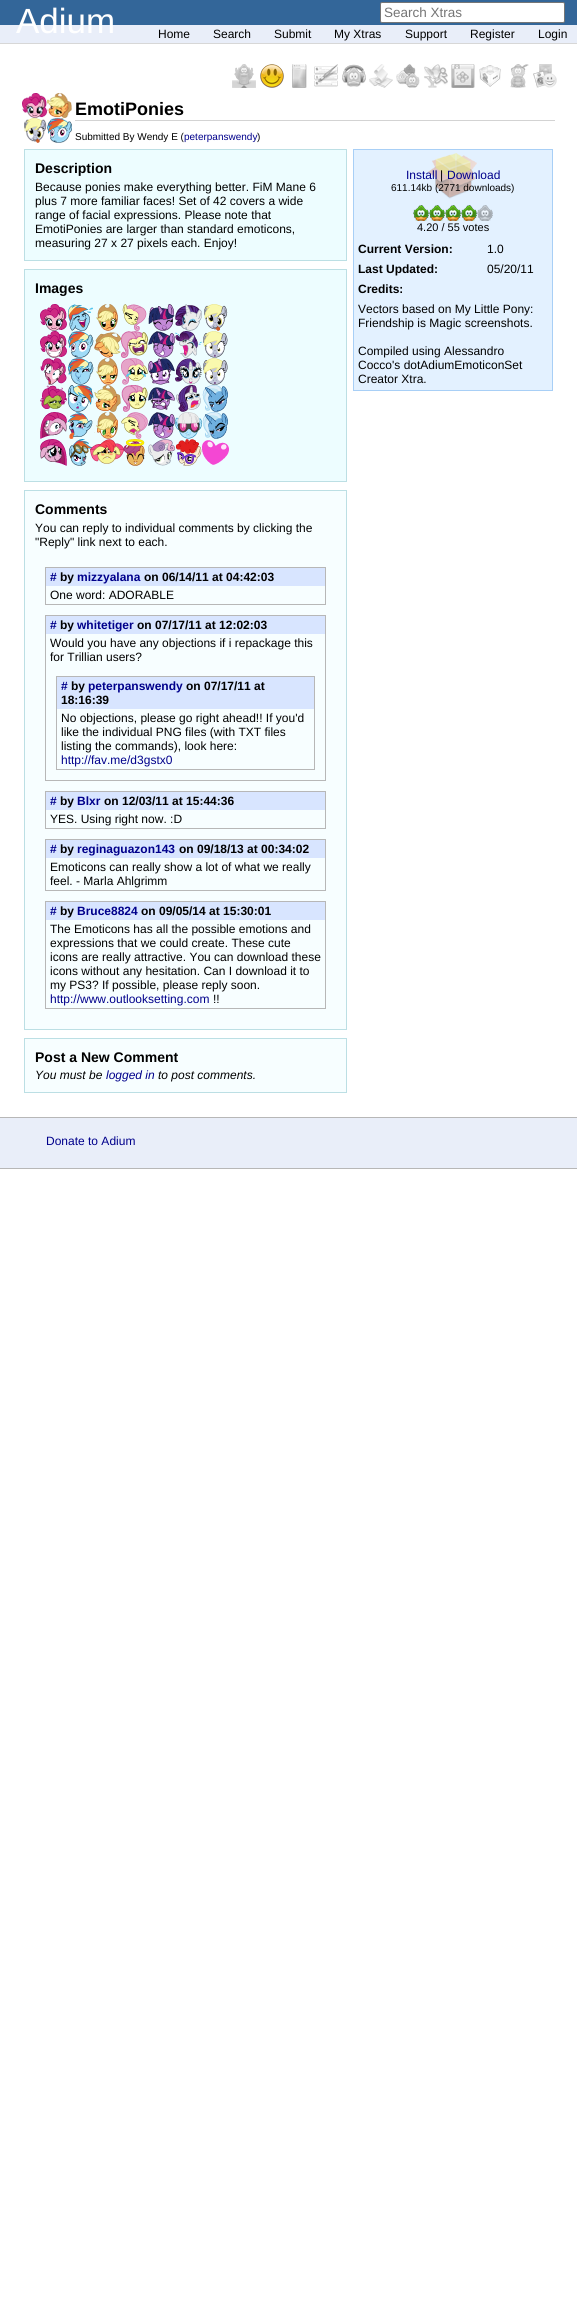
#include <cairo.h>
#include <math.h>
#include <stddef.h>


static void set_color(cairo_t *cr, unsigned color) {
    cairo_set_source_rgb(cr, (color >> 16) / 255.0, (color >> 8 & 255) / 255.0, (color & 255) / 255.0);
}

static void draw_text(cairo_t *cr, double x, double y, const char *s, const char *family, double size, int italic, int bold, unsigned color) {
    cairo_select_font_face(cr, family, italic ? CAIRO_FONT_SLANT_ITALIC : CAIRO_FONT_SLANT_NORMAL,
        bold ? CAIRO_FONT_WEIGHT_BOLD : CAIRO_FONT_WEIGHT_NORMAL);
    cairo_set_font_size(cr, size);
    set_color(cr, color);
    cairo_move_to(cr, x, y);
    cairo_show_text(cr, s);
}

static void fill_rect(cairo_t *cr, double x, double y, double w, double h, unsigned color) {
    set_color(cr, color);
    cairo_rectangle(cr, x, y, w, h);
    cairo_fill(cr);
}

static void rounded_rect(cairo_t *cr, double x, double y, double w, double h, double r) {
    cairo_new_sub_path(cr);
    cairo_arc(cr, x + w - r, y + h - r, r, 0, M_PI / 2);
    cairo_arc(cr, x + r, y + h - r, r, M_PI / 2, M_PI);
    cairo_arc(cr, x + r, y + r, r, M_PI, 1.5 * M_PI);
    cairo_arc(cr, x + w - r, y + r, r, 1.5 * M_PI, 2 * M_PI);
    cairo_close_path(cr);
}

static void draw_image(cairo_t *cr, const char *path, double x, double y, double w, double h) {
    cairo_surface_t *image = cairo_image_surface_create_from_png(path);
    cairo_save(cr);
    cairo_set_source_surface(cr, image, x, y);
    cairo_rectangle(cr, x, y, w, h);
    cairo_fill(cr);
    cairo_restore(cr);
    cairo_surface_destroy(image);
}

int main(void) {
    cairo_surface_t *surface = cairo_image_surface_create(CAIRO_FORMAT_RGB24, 577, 2300);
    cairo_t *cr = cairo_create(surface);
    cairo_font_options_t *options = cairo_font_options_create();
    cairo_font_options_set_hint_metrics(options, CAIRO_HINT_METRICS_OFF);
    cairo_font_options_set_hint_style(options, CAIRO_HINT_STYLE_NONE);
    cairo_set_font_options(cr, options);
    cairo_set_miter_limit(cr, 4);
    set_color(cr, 0xFFFFFF);
    cairo_paint(cr);
    fill_rect(cr, 0, 0, 577, 25, 0x336699);
    fill_rect(cr, 0, 25, 577, 18, 0xE9EEF9);
    draw_text(cr, 16, 33, "Adium", "Liberation Sans", 35, 0, 0, 0xFFFFFF);
    rounded_rect(cr, 380.5, 2.5, 184, 20, 1.5);
    cairo_fill_preserve(cr);
    set_color(cr, 0x767676);
    cairo_set_line_width(cr, 1);
    cairo_stroke(cr);
    draw_text(cr, 384, 17, "Search Xtras", "Liberation Sans", 13.5, 0, 0, 0x757575);
    fill_rect(cr, 0, 43, 577, 1, 0xD7D7D7);
    draw_text(cr, 158, 38, "Home", "Liberation Sans", 12, 0, 0, 0x000000);
    draw_text(cr, 213, 38, "Search", "Liberation Sans", 12, 0, 0, 0x000000);
    draw_text(cr, 274, 38, "Submit", "Liberation Sans", 12, 0, 0, 0x000000);
    draw_text(cr, 334, 38, "My Xtras", "Liberation Sans", 12, 0, 0, 0x000000);
    draw_text(cr, 405, 38, "Support", "Liberation Sans", 12, 0, 0, 0x000000);
    draw_text(cr, 470, 38, "Register", "Liberation Sans", 12, 0, 0, 0x000000);
    draw_text(cr, 538, 38, "Login", "Liberation Sans", 12, 0, 0, 0x000000);
    draw_image(cr, "assets/img1.png", 232, 64, 24, 24);
    draw_image(cr, "assets/img2.png", 260, 64, 24, 24);
    draw_image(cr, "assets/img3.png", 292, 64, 15, 24);
    draw_image(cr, "assets/img4.png", 314, 64, 24, 23);
    draw_image(cr, "assets/img5.png", 342, 64, 24, 23);
    draw_image(cr, "assets/img6.png", 369, 64, 24, 24);
    draw_image(cr, "assets/img7.png", 396, 64, 24, 24);
    draw_image(cr, "assets/img8.png", 424, 64, 24, 24);
    draw_image(cr, "assets/img9.png", 451, 64, 24, 24);
    draw_image(cr, "assets/img10.png", 479, 65, 22, 22);
    draw_image(cr, "assets/img11.png", 510, 64, 19, 24);
    draw_image(cr, "assets/img12.png", 533, 64, 24, 24);
    draw_image(cr, "assets/img13.png", 22, 93, 50, 50);
    fill_rect(cr, 75, 120, 480, 1, 0xD3D3D3);
    draw_text(cr, 75, 115, "EmotiPonies", "Liberation Sans", 18, 0, 1, 0x000000);
    draw_text(cr, 75, 140, "Submitted By Wendy E (", "Liberation Sans", 10, 0, 0, 0x000000);
    draw_text(cr, 184, 140, "peterpanswendy", "Liberation Sans", 10, 0, 0, 0x00008B);
    draw_text(cr, 257, 140, ")", "Liberation Sans", 10, 0, 0, 0x000000);
    set_color(cr, 0xEDFDFF);
    cairo_rectangle(cr, 24.5, 149.5, 322, 111);
    cairo_fill_preserve(cr);
    set_color(cr, 0xBCDFE4);
    cairo_stroke(cr);
    draw_text(cr, 35, 173, "Description", "Liberation Sans", 14, 0, 1, 0x000000);
    draw_text(cr, 35, 191, "Because ponies make everything better. FiM Mane 6", "Liberation Sans", 12, 0, 0, 0x000000);
    draw_text(cr, 35, 205, "plus 7 more familiar faces! Set of 42 covers a wide", "Liberation Sans", 12, 0, 0, 0x000000);
    draw_text(cr, 35, 219, "range of facial expressions. Please note that", "Liberation Sans", 12, 0, 0, 0x000000);
    draw_text(cr, 35, 233, "EmotiPonies are larger than standard emoticons,", "Liberation Sans", 12, 0, 0, 0x000000);
    draw_text(cr, 35, 247, "measuring 27 x 27 pixels each. Enjoy!", "Liberation Sans", 12, 0, 0, 0x000000);
    set_color(cr, 0xEDFDFF);
    cairo_rectangle(cr, 24.5, 269.5, 322, 212);
    cairo_fill_preserve(cr);
    set_color(cr, 0xBCDFE4);
    cairo_stroke(cr);
    draw_text(cr, 35, 293, "Images", "Liberation Sans", 14, 0, 1, 0x000000);
    draw_image(cr, "assets/img14.png", 40, 304, 189, 162);
    set_color(cr, 0xF7FEFF);
    cairo_rectangle(cr, 24.5, 490.5, 322, 539);
    cairo_fill_preserve(cr);
    set_color(cr, 0xBCDFE4);
    cairo_stroke(cr);
    draw_text(cr, 35, 514, "Comments", "Liberation Sans", 14, 0, 1, 0x000000);
    draw_text(cr, 35, 532, "You can reply to individual comments by clicking the", "Liberation Sans", 12, 0, 0, 0x000000);
    draw_text(cr, 35, 546, "\"Reply\" link next to each.", "Liberation Sans", 12, 0, 0, 0x000000);
    cairo_rectangle(cr, 45.5, 567.5, 280, 37);
    set_color(cr, 0xB7B7B7);
    cairo_stroke(cr);
    fill_rect(cr, 46, 568, 279, 18, 0xD8E5FF);
    draw_text(cr, 50, 581, "#", "Liberation Sans", 12, 0, 1, 0x00008B);
    draw_text(cr, 60, 581, "by", "Liberation Sans", 12, 0, 1, 0x000000);
    draw_text(cr, 77, 581, "mizzyalana", "Liberation Sans", 12, 0, 1, 0x00008B);
    draw_text(cr, 144, 581, "on 06/14/11 at 04:42:03", "Liberation Sans", 12, 0, 1, 0x000000);
    draw_text(cr, 50, 599, "One word: ADORABLE", "Liberation Sans", 12, 0, 0, 0x000000);
    cairo_rectangle(cr, 45.5, 615.5, 280, 165);
    set_color(cr, 0xB7B7B7);
    cairo_stroke(cr);
    fill_rect(cr, 46, 616, 279, 18, 0xD8E5FF);
    draw_text(cr, 50, 629, "#", "Liberation Sans", 12, 0, 1, 0x00008B);
    draw_text(cr, 60, 629, "by", "Liberation Sans", 12, 0, 1, 0x000000);
    draw_text(cr, 77, 629, "whitetiger", "Liberation Sans", 12, 0, 1, 0x00008B);
    draw_text(cr, 137, 629, "on 07/17/11 at 12:02:03", "Liberation Sans", 12, 0, 1, 0x000000);
    draw_text(cr, 50, 647, "Would you have any objections if i repackage this", "Liberation Sans", 12, 0, 0, 0x000000);
    draw_text(cr, 50, 661, "for Trillian users?", "Liberation Sans", 12, 0, 0, 0x000000);
    cairo_rectangle(cr, 56.5, 676.5, 258, 93);
    set_color(cr, 0xB7B7B7);
    cairo_stroke(cr);
    fill_rect(cr, 57, 677, 257, 32, 0xD8E5FF);
    draw_text(cr, 61, 690, "#", "Liberation Sans", 12, 0, 1, 0x00008B);
    draw_text(cr, 71, 690, "by", "Liberation Sans", 12, 0, 1, 0x000000);
    draw_text(cr, 88, 690, "peterpanswendy", "Liberation Sans", 12, 0, 1, 0x00008B);
    draw_text(cr, 186, 690, "on 07/17/11 at", "Liberation Sans", 12, 0, 1, 0x000000);
    draw_text(cr, 61, 704, "18:16:39", "Liberation Sans", 12, 0, 1, 0x000000);
    draw_text(cr, 61, 722, "No objections, please go right ahead!! If you'd", "Liberation Sans", 12, 0, 0, 0x000000);
    draw_text(cr, 61, 736, "like the individual PNG files (with TXT files", "Liberation Sans", 12, 0, 0, 0x000000);
    draw_text(cr, 61, 750, "listing the commands), look here:", "Liberation Sans", 12, 0, 0, 0x000000);
    draw_text(cr, 61, 764, "http://fav.me/d3gstx0", "Liberation Sans", 12, 0, 0, 0x00008B);
    cairo_rectangle(cr, 45.5, 791.5, 280, 37);
    set_color(cr, 0xB7B7B7);
    cairo_stroke(cr);
    fill_rect(cr, 46, 792, 279, 18, 0xD8E5FF);
    draw_text(cr, 50, 805, "#", "Liberation Sans", 12, 0, 1, 0x00008B);
    draw_text(cr, 60, 805, "by", "Liberation Sans", 12, 0, 1, 0x000000);
    draw_text(cr, 77, 805, "Blxr", "Liberation Sans", 12, 0, 1, 0x00008B);
    draw_text(cr, 104, 805, "on 12/03/11 at 15:44:36", "Liberation Sans", 12, 0, 1, 0x000000);
    draw_text(cr, 50, 823, "YES. Using right now. :D", "Liberation Sans", 12, 0, 0, 0x000000);
    cairo_rectangle(cr, 45.5, 839.5, 280, 51);
    set_color(cr, 0xB7B7B7);
    cairo_stroke(cr);
    fill_rect(cr, 46, 840, 279, 18, 0xD8E5FF);
    draw_text(cr, 50, 853, "#", "Liberation Sans", 12, 0, 1, 0x00008B);
    draw_text(cr, 60, 853, "by", "Liberation Sans", 12, 0, 1, 0x000000);
    draw_text(cr, 77, 853, "reginaguazon143", "Liberation Sans", 12, 0, 1, 0x00008B);
    draw_text(cr, 179, 853, "on 09/18/13 at 00:34:02", "Liberation Sans", 12, 0, 1, 0x000000);
    draw_text(cr, 50, 871, "Emoticons can really show a lot of what we really", "Liberation Sans", 12, 0, 0, 0x000000);
    draw_text(cr, 50, 885, "feel. - Marla Ahlgrimm", "Liberation Sans", 12, 0, 0, 0x000000);
    cairo_rectangle(cr, 45.5, 901.5, 280, 107);
    set_color(cr, 0xB7B7B7);
    cairo_stroke(cr);
    fill_rect(cr, 46, 902, 279, 18, 0xD8E5FF);
    draw_text(cr, 50, 915, "#", "Liberation Sans", 12, 0, 1, 0x00008B);
    draw_text(cr, 60, 915, "by", "Liberation Sans", 12, 0, 1, 0x000000);
    draw_text(cr, 77, 915, "Bruce8824", "Liberation Sans", 12, 0, 1, 0x00008B);
    draw_text(cr, 141, 915, "on 09/05/14 at 15:30:01", "Liberation Sans", 12, 0, 1, 0x000000);
    draw_text(cr, 50, 933, "The Emoticons has all the possible emotions and", "Liberation Sans", 12, 0, 0, 0x000000);
    draw_text(cr, 50, 947, "expressions that we could create. These cute", "Liberation Sans", 12, 0, 0, 0x000000);
    draw_text(cr, 50, 961, "icons are really attractive. You can download these", "Liberation Sans", 12, 0, 0, 0x000000);
    draw_text(cr, 50, 975, "icons without any hesitation. Can I download it to", "Liberation Sans", 12, 0, 0, 0x000000);
    draw_text(cr, 50, 989, "my PS3? If possible, please reply soon.", "Liberation Sans", 12, 0, 0, 0x000000);
    draw_text(cr, 50, 1003, "http://www.outlooksetting.com", "Liberation Sans", 12, 0, 0, 0x00008B);
    draw_text(cr, 213, 1003, "!!", "Liberation Sans", 12, 0, 0, 0x000000);
    set_color(cr, 0xF7FEFF);
    cairo_rectangle(cr, 24.5, 1038.5, 322, 54);
    cairo_fill_preserve(cr);
    set_color(cr, 0xBCDFE4);
    cairo_stroke(cr);
    draw_text(cr, 35, 1062, "Post a New Comment", "Liberation Sans", 14, 0, 1, 0x000000);
    draw_text(cr, 35, 1079, "You must be", "Liberation Sans", 12, 1, 0, 0x000000);
    draw_text(cr, 106, 1079, "logged in", "Liberation Sans", 12, 1, 0, 0x00008B);
    draw_text(cr, 158, 1079, "to post comments.", "Liberation Sans", 12, 1, 0, 0x000000);
    set_color(cr, 0xE3F1FF);
    cairo_rectangle(cr, 353.5, 149.5, 199, 241);
    cairo_fill_preserve(cr);
    set_color(cr, 0xA8CFF6);
    cairo_stroke(cr);
    draw_image(cr, "assets/img15.png", 428, 153, 49, 46);
    draw_text(cr, 406, 179, "Install", "Liberation Sans", 12, 0, 0, 0x00008B);
    draw_text(cr, 440, 179, "|", "Liberation Sans", 12, 0, 0, 0x000000);
    draw_text(cr, 447, 179, "Download", "Liberation Sans", 12, 0, 0, 0x00008B);
    draw_text(cr, 391, 191, "611.14kb (2771 downloads)", "Liberation Sans", 10, 0, 0, 0x000000);
    draw_image(cr, "assets/img16.png", 413, 205, 16, 16);
    draw_image(cr, "assets/img16.png", 429, 205, 16, 16);
    draw_image(cr, "assets/img16.png", 445, 205, 16, 16);
    draw_image(cr, "assets/img16.png", 461, 205, 16, 16);
    draw_image(cr, "assets/img17.png", 477, 205, 16, 16);
    draw_text(cr, 417, 231, "4.20 / 55 votes", "Liberation Sans", 11, 0, 0, 0x000000);
    draw_text(cr, 358, 253, "Current Version:", "Liberation Sans", 12, 0, 1, 0x000000);
    draw_text(cr, 487, 253, "1.0", "Liberation Sans", 12, 0, 0, 0x000000);
    draw_text(cr, 358, 273, "Last Updated:", "Liberation Sans", 12, 0, 1, 0x000000);
    draw_text(cr, 487, 273, "05/20/11", "Liberation Sans", 12, 0, 0, 0x000000);
    draw_text(cr, 358, 293, "Credits:", "Liberation Sans", 12, 0, 1, 0x000000);
    draw_text(cr, 358, 313, "Vectors based on My Little Pony:", "Liberation Sans", 12, 0, 0, 0x000000);
    draw_text(cr, 358, 327, "Friendship is Magic screenshots.", "Liberation Sans", 12, 0, 0, 0x000000);
    draw_text(cr, 358, 355, "Compiled using Alessandro", "Liberation Sans", 12, 0, 0, 0x000000);
    draw_text(cr, 358, 369, "Cocco's dotAdiumEmoticonSet", "Liberation Sans", 12, 0, 0, 0x000000);
    draw_text(cr, 358, 383, "Creator Xtra.", "Liberation Sans", 12, 0, 0, 0x000000);
    fill_rect(cr, 0, 1118, 577, 50, 0xE9EEF9);
    fill_rect(cr, 0, 1117, 577, 1, 0xB7B7B7);
    fill_rect(cr, 0, 1168, 577, 1, 0xB7B7B7);
    draw_text(cr, 46, 1145, "Donate to Adium", "Liberation Sans", 12, 0, 0, 0x00008B);
    cairo_surface_write_to_png(surface, "output.png");
    cairo_font_options_destroy(options);
    cairo_destroy(cr);
    cairo_surface_destroy(surface);
    return 0;
}
